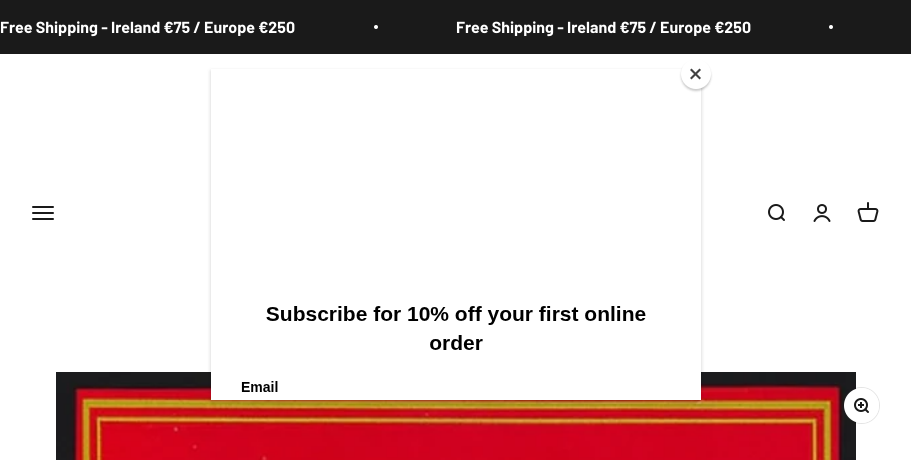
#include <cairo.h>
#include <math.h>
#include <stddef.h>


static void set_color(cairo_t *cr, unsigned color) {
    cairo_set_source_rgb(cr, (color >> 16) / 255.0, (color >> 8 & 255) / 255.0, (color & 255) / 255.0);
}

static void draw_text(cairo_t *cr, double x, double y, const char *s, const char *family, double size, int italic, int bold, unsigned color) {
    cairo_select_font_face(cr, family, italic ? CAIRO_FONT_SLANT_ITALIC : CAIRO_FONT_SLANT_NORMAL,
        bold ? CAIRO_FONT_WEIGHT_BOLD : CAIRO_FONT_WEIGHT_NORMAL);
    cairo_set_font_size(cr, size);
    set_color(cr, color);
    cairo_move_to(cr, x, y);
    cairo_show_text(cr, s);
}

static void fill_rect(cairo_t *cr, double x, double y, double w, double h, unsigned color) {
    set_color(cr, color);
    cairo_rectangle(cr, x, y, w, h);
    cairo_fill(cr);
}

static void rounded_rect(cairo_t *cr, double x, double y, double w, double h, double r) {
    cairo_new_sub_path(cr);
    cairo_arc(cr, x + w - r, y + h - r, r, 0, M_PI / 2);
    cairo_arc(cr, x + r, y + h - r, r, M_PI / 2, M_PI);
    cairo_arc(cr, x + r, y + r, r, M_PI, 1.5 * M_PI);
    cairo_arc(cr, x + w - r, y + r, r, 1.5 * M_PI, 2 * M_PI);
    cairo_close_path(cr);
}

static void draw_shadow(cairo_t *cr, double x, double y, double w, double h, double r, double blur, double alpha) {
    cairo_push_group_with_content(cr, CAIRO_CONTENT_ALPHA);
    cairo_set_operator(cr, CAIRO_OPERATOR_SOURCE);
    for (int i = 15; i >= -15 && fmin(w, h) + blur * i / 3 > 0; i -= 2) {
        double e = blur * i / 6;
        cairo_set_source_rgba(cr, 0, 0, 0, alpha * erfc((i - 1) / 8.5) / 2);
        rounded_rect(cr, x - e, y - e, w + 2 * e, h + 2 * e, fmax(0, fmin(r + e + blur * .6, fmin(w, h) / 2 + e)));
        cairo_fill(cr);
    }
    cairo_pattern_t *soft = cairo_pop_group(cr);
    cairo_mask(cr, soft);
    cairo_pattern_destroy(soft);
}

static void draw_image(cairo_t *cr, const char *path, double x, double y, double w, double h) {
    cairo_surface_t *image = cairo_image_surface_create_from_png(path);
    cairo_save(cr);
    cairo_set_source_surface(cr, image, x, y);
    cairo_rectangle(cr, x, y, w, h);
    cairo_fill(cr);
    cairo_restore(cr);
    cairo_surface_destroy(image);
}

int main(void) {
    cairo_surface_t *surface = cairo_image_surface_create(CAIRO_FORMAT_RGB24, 911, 460);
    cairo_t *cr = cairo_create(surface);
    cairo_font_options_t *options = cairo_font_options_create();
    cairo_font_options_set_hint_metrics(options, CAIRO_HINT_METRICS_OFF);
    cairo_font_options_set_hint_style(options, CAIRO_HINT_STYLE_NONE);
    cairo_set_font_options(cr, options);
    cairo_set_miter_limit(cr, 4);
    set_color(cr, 0xFFFFFF);
    cairo_paint(cr);
    fill_rect(cr, 0, 0, 911, 54, 0x1A1A1A);
    draw_text(cr, 0, 33, "Free Shipping - Ireland €75 / Europe €250", "Barlow", 16, 0, 1, 0xFFFFFF);
    cairo_new_path(cr);
    cairo_arc(cr, 376, 27, 2, 0, 2 * M_PI);
    cairo_fill(cr);
    draw_text(cr, 456, 33, "Free Shipping - Ireland €75 / Europe €250", "Barlow", 16, 0, 1, 0xFFFFFF);
    cairo_new_path(cr);
    cairo_arc(cr, 831, 27, 2, 0, 2 * M_PI);
    cairo_fill(cr);
    set_color(cr, 0x000000);
    draw_shadow(cr, 681, 61, 30, 30, 15, 1, 0.2);
    draw_image(cr, "assets/img5.png", 56, 372, 800, 88);
    cairo_save(cr);
    cairo_set_fill_rule(cr, CAIRO_FILL_RULE_EVEN_ODD);
    cairo_new_path(cr);
    cairo_move_to(cr, 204, 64);
    cairo_line_to(cr, 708, 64);
    cairo_line_to(cr, 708, 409);
    cairo_line_to(cr, 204, 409);
    cairo_close_path(cr);
    cairo_move_to(cr, 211, 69);
    cairo_line_to(cr, 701, 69);
    cairo_line_to(cr, 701, 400);
    cairo_line_to(cr, 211, 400);
    cairo_close_path(cr);
    cairo_clip(cr);
    draw_shadow(cr, 211, 71, 490, 331, 0, 2, 0.2);
    cairo_restore(cr);
    set_color(cr, 0xFFFFFF);
    cairo_arc(cr, 696, 74, 15, 0, 2 * M_PI);
    cairo_fill(cr);
    set_color(cr, 0x414141);
    cairo_new_path(cr);
    cairo_move_to(cr, 699.5, 68.5);
    cairo_line_to(cr, 701, 70);
    cairo_line_to(cr, 691.5, 79.5);
    cairo_line_to(cr, 690, 78);
    cairo_close_path(cr);
    cairo_fill(cr);
    cairo_new_path(cr);
    cairo_move_to(cr, 690, 70);
    cairo_line_to(cr, 691.5, 68.5);
    cairo_line_to(cr, 701, 78);
    cairo_line_to(cr, 699.5, 79.5);
    cairo_close_path(cr);
    cairo_fill(cr);
    draw_image(cr, "assets/img1.png", 211, 148, 490, 252);
    draw_image(cr, "assets/img2.png", 32, 206, 22, 14);
    draw_image(cr, "assets/img3.png", 768, 204, 17, 17);
    cairo_arc(cr, 822, 209, 4, 0, 2 * M_PI);
    set_color(cr, 0x1A1A1A);
    cairo_stroke(cr);
    cairo_new_path(cr);
    cairo_move_to(cr, 814.5, 221);
    cairo_curve_to(cr, 817.5, 214.5, 826.5, 214.5, 829.5, 221);
    cairo_set_line_cap(cr, CAIRO_LINE_CAP_ROUND);
    cairo_stroke(cr);
    draw_image(cr, "assets/img4.png", 857, 202, 22, 20);
    cairo_arc(cr, 861.5, 405.5, 18, 0, 2 * M_PI);
    cairo_set_source_rgba(cr, 0.102, 0.102, 0.102, 0.12);
    cairo_set_line_width(cr, 1);
    cairo_set_line_cap(cr, CAIRO_LINE_CAP_BUTT);
    cairo_stroke(cr);
    set_color(cr, 0xFFFFFF);
    cairo_arc(cr, 861.5, 405.5, 17.5, 0, 2 * M_PI);
    cairo_fill(cr);
    draw_image(cr, "assets/img6.png", 854, 398, 15, 15);
    cairo_surface_write_to_png(surface, "output.png");
    cairo_font_options_destroy(options);
    cairo_destroy(cr);
    cairo_surface_destroy(surface);
    return 0;
}
